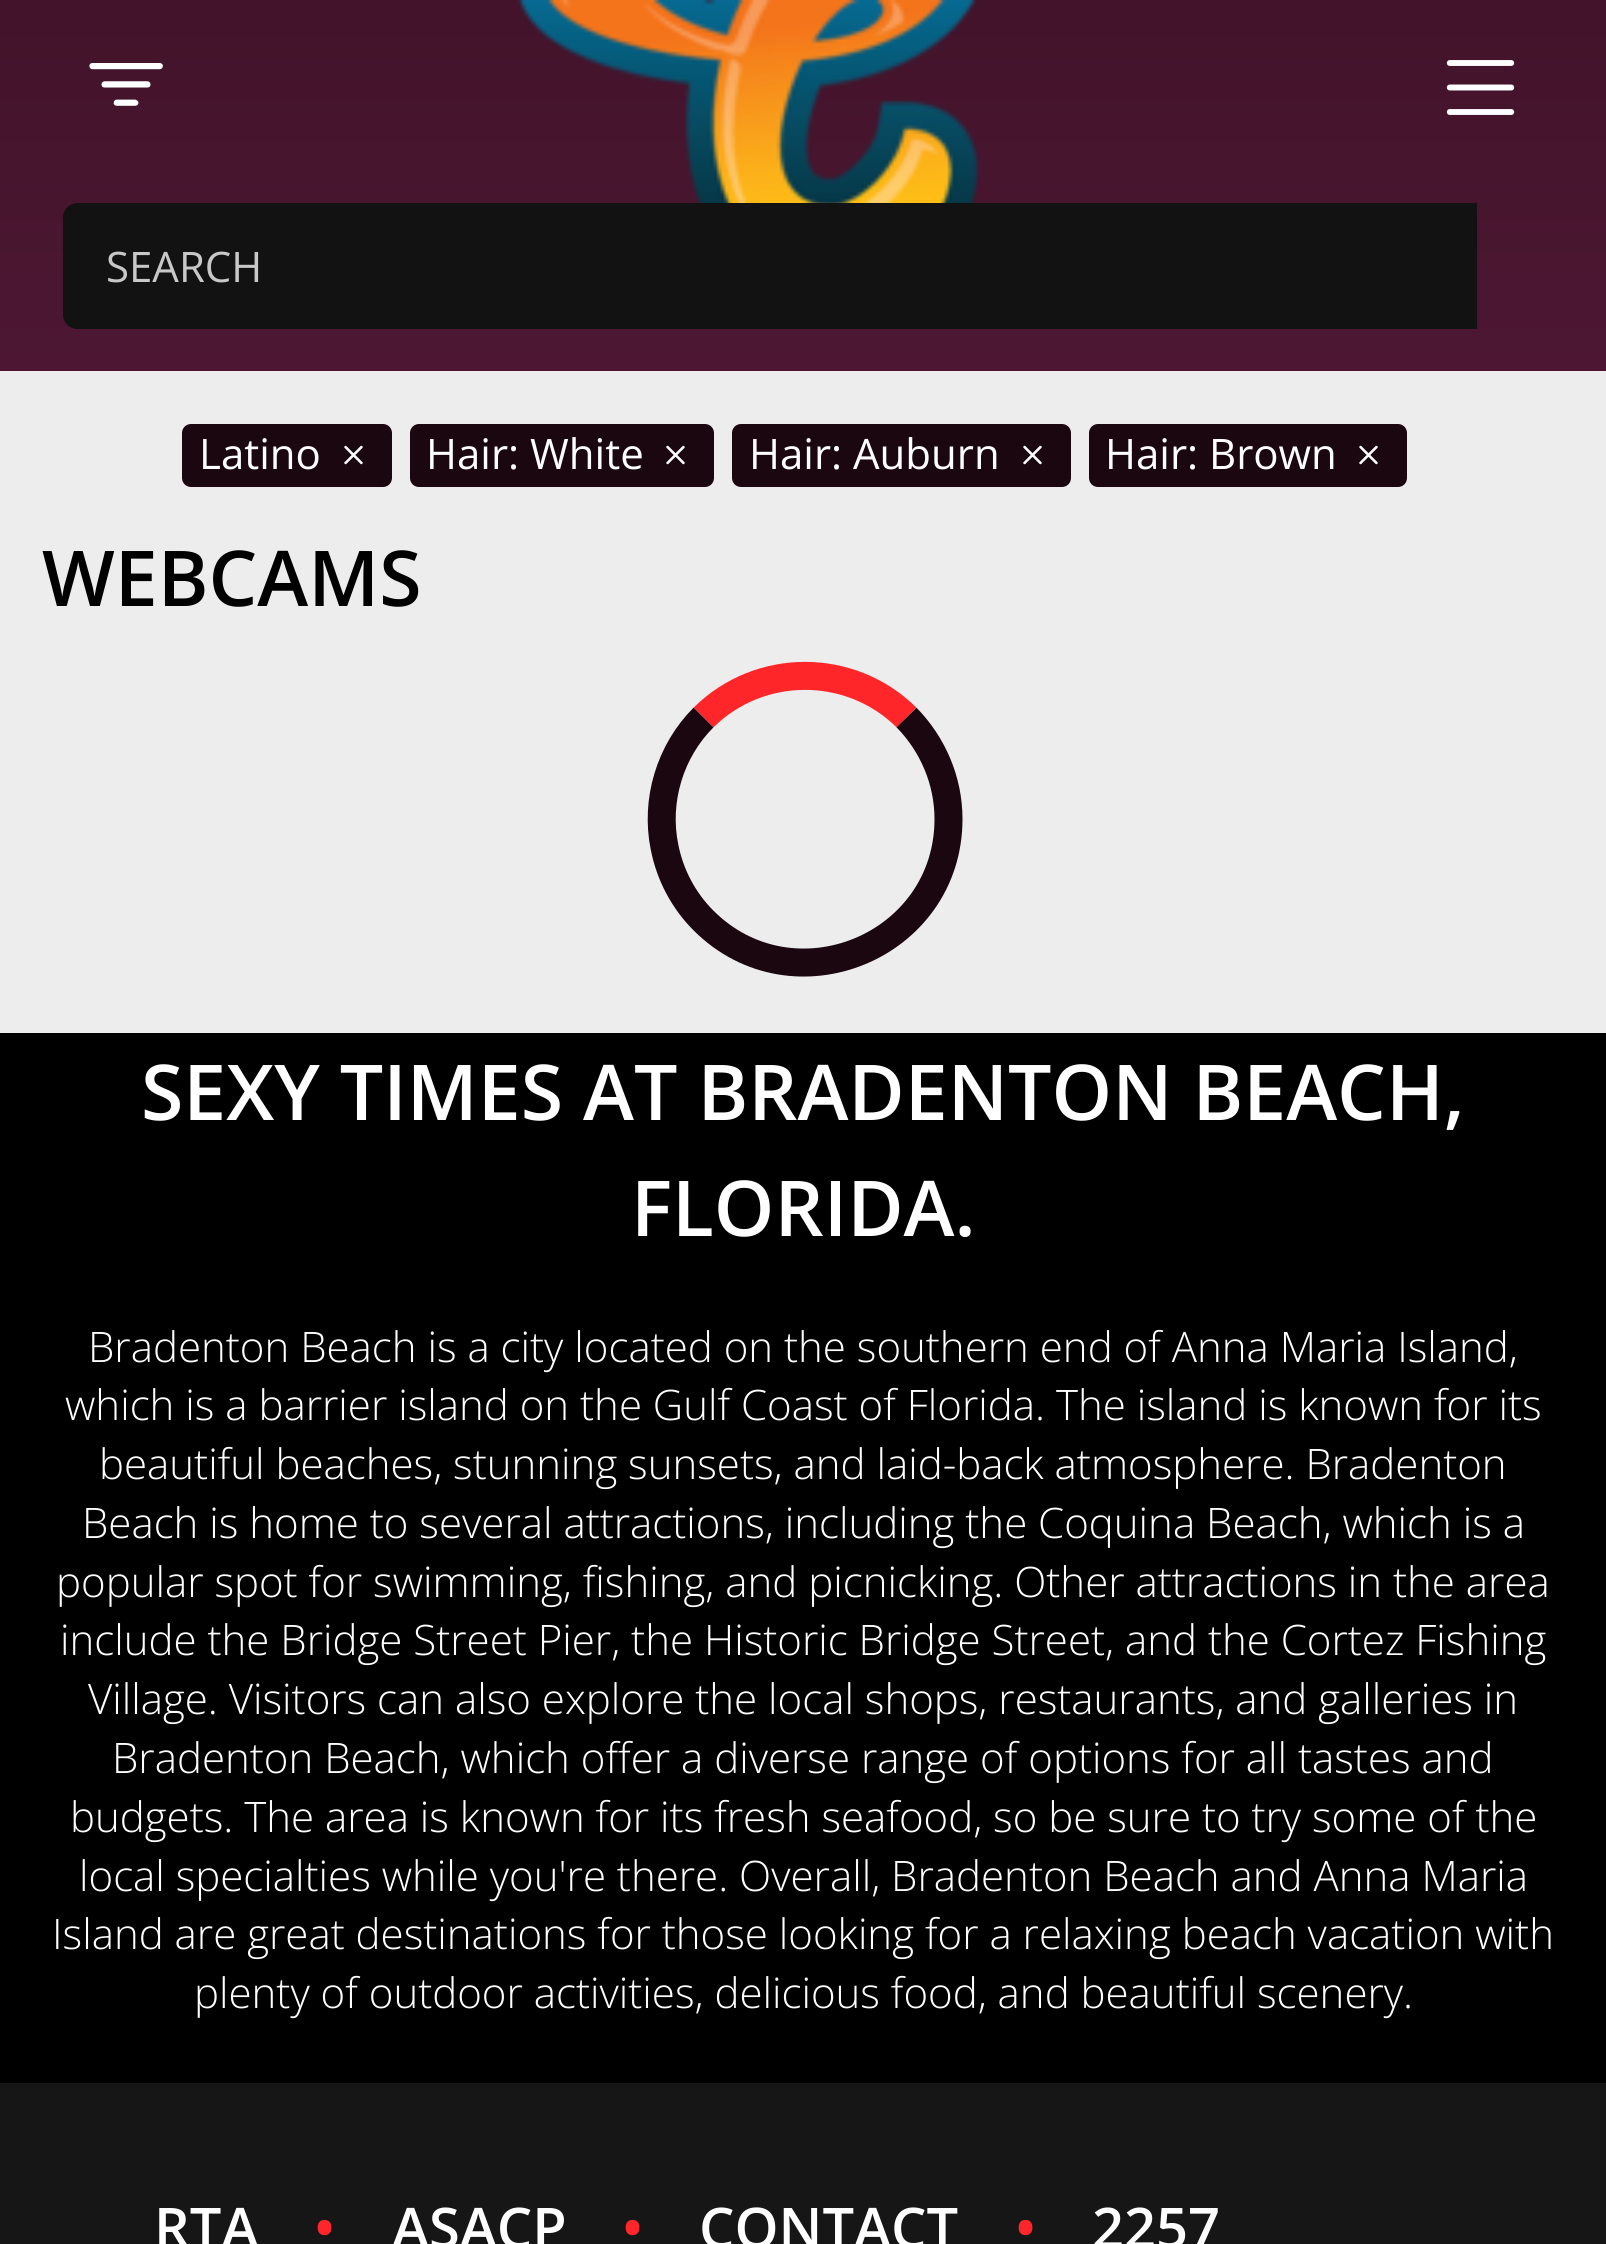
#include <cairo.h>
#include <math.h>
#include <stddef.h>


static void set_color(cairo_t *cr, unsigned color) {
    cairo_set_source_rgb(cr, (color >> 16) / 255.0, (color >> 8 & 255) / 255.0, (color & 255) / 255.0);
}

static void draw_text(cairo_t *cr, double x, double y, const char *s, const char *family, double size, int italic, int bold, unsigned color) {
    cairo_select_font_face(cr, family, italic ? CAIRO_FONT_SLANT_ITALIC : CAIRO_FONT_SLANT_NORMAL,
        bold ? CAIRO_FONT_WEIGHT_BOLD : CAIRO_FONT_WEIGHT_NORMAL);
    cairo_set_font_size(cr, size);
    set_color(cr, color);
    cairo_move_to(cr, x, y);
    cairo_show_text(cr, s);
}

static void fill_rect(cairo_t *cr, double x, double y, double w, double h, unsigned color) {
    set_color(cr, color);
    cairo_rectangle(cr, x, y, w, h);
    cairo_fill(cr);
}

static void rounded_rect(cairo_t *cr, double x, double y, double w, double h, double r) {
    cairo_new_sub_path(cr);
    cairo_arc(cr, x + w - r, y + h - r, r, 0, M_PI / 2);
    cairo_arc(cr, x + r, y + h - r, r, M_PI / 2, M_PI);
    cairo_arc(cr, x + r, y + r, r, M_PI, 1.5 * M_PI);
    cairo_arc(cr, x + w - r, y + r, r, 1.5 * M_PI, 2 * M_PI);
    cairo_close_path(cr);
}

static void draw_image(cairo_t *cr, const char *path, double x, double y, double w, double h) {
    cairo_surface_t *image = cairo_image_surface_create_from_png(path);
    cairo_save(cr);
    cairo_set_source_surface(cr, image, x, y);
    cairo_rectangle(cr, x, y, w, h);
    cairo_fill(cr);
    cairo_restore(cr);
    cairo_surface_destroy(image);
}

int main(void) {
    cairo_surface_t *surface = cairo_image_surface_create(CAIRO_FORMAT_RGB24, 1606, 2244);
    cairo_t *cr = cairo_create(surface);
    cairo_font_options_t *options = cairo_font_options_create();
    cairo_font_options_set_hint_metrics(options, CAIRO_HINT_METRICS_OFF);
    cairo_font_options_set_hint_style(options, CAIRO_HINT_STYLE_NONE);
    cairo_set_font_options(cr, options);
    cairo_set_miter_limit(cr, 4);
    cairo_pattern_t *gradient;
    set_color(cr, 0xEDEDED);
    cairo_paint(cr);
    gradient = cairo_pattern_create_linear(803, 0, 803, 371);
    cairo_pattern_add_color_stop_rgba(gradient, 0, 0.259, 0.075, 0.165, 1);
    cairo_pattern_add_color_stop_rgba(gradient, 1, 0.302, 0.09, 0.2, 1);
    cairo_set_source(cr, gradient);
    cairo_pattern_destroy(gradient);
    cairo_rectangle(cr, 0, 0, 1606, 371);
    cairo_fill(cr);
    draw_image(cr, "assets/img1.png", 89, 63, 74, 43);
    draw_image(cr, "assets/img2.png", 517, 0, 464, 203);
    draw_image(cr, "assets/img3.png", 1446, 60, 69, 55);
    set_color(cr, 0x121212);
    cairo_new_path(cr);
    cairo_move_to(cr, 77, 203);
    cairo_line_to(cr, 1477, 203);
    cairo_line_to(cr, 1477, 329);
    cairo_line_to(cr, 77, 329);
    cairo_curve_to(cr, 69.5, 329, 63, 322.5, 63, 315);
    cairo_line_to(cr, 63, 217);
    cairo_curve_to(cr, 63, 209.5, 69.5, 203, 77, 203);
    cairo_close_path(cr);
    cairo_fill(cr);
    draw_text(cr, 106, 282, "SEARCH", "Open Sans", 42, 0, 0, 0xC8C8C8);
    set_color(cr, 0x1A0710);
    rounded_rect(cr, 182, 424, 210, 63, 9);
    cairo_fill(cr);
    draw_text(cr, 199, 469, "Latino", "Open Sans", 42, 0, 0, 0xFFFFFF);
    draw_image(cr, "assets/img4.png", 344, 445, 19, 20);
    set_color(cr, 0x1A0710);
    rounded_rect(cr, 410, 424, 304, 63, 9);
    cairo_fill(cr);
    draw_text(cr, 426, 469, "Hair: White", "Open Sans", 42, 0, 0, 0xFFFFFF);
    draw_image(cr, "assets/img4.png", 666, 445, 19, 20);
    set_color(cr, 0x1A0710);
    rounded_rect(cr, 732, 424, 339, 63, 9);
    cairo_fill(cr);
    draw_text(cr, 749, 469, "Hair: Auburn", "Open Sans", 42, 0, 0, 0xFFFFFF);
    draw_image(cr, "assets/img4.png", 1023, 445, 19, 20);
    set_color(cr, 0x1A0710);
    rounded_rect(cr, 1089, 424, 318, 63, 9);
    cairo_fill(cr);
    draw_text(cr, 1105, 469, "Hair: Brown", "Open Sans", 42, 0, 0, 0xFFFFFF);
    draw_image(cr, "assets/img4.png", 1359, 445, 19, 20);
    draw_text(cr, 42, 606, "WEBCAMS", "Open Sans SemiBold", 77, 0, 0, 0x000000);
    cairo_new_path(cr);
    cairo_move_to(cr, 703.5, 717.5);
    cairo_curve_to(cr, 759.5, 662, 850.5, 662, 906.5, 717.5);
    set_color(cr, 0xFF262A);
    cairo_set_line_width(cr, 28);
    cairo_stroke(cr);
    cairo_new_path(cr);
    cairo_move_to(cr, 906.5, 717.5);
    cairo_curve_to(cr, 933, 744.5, 948.5, 781, 948.5, 819);
    cairo_curve_to(cr, 948.5, 946.5, 793.5, 1010.5, 703.5, 920.5);
    cairo_curve_to(cr, 683.5, 900.5, 670, 875, 664.5, 847);
    cairo_curve_to(cr, 655, 800.5, 670, 751, 703.5, 717.5);
    set_color(cr, 0x1A0710);
    cairo_stroke(cr);
    fill_rect(cr, 0, 2083, 1606, 161, 0x161616);
    fill_rect(cr, 0, 1033, 1606, 1050, 0x000000);
    draw_text(cr, 141, 1120, "SEXY TIMES AT BRADENTON BEACH,", "Open Sans SemiBold", 77, 0, 0, 0xFFFFFF);
    draw_text(cr, 631, 1236, "FLORIDA.", "Open Sans SemiBold", 77, 0, 0, 0xFFFFFF);
    draw_text(cr, 88, 1362, "Bradenton Beach is a city located on the southern end of Anna Maria Island,", "Open Sans Light", 42, 0, 0, 0xFFFFFF);
    draw_text(cr, 65, 1420, "which is a barrier island on the Gulf Coast of Florida. The island is known for its", "Open Sans Light", 42, 0, 0, 0xFFFFFF);
    draw_text(cr, 99, 1479, "beautiful beaches, stunning sunsets, and laid-back atmosphere. Bradenton", "Open Sans Light", 42, 0, 0, 0xFFFFFF);
    draw_text(cr, 82, 1538, "Beach is home to several attractions, including the Coquina Beach, which is a", "Open Sans Light", 42, 0, 0, 0xFFFFFF);
    draw_text(cr, 56, 1597, "popular spot for swimming, fishing, and picnicking. Other attractions in the area", "Open Sans Light", 42, 0, 0, 0xFFFFFF);
    draw_text(cr, 60, 1655, "include the Bridge Street Pier, the Historic Bridge Street, and the Cortez Fishing", "Open Sans Light", 42, 0, 0, 0xFFFFFF);
    draw_text(cr, 88, 1714, "Village. Visitors can also explore the local shops, restaurants, and galleries in", "Open Sans Light", 42, 0, 0, 0xFFFFFF);
    draw_text(cr, 112, 1773, "Bradenton Beach, which offer a diverse range of options for all tastes and", "Open Sans Light", 42, 0, 0, 0xFFFFFF);
    draw_text(cr, 70, 1832, "budgets. The area is known for its fresh seafood, so be sure to try some of the", "Open Sans Light", 42, 0, 0, 0xFFFFFF);
    draw_text(cr, 79, 1891, "local specialties while you're there. Overall, Bradenton Beach and Anna Maria", "Open Sans Light", 42, 0, 0, 0xFFFFFF);
    draw_text(cr, 52, 1949, "Island are great destinations for those looking for a relaxing beach vacation with", "Open Sans Light", 42, 0, 0, 0xFFFFFF);
    draw_text(cr, 194, 2008, "plenty of outdoor activities, delicious food, and beautiful scenery.", "Open Sans Light", 42, 0, 0, 0xFFFFFF);
    draw_text(cr, 154, 2248, "RTA", "Open Sans SemiBold", 56, 0, 0, 0xFFFFFF);
    draw_text(cr, 314, 2248, "•", "Open Sans SemiBold", 56, 0, 0, 0xFE262A);
    draw_text(cr, 392, 2248, "ASACP", "Open Sans SemiBold", 56, 0, 0, 0xFFFFFF);
    draw_text(cr, 622, 2248, "•", "Open Sans SemiBold", 56, 0, 0, 0xFE262A);
    draw_text(cr, 699, 2248, "CONTACT", "Open Sans SemiBold", 56, 0, 0, 0xFFFFFF);
    draw_text(cr, 1015, 2248, "•", "Open Sans SemiBold", 56, 0, 0, 0xFE262A);
    draw_text(cr, 1092, 2248, "2257", "Open Sans SemiBold", 56, 0, 0, 0xFFFFFF);
    cairo_surface_write_to_png(surface, "output.png");
    cairo_font_options_destroy(options);
    cairo_destroy(cr);
    cairo_surface_destroy(surface);
    return 0;
}
